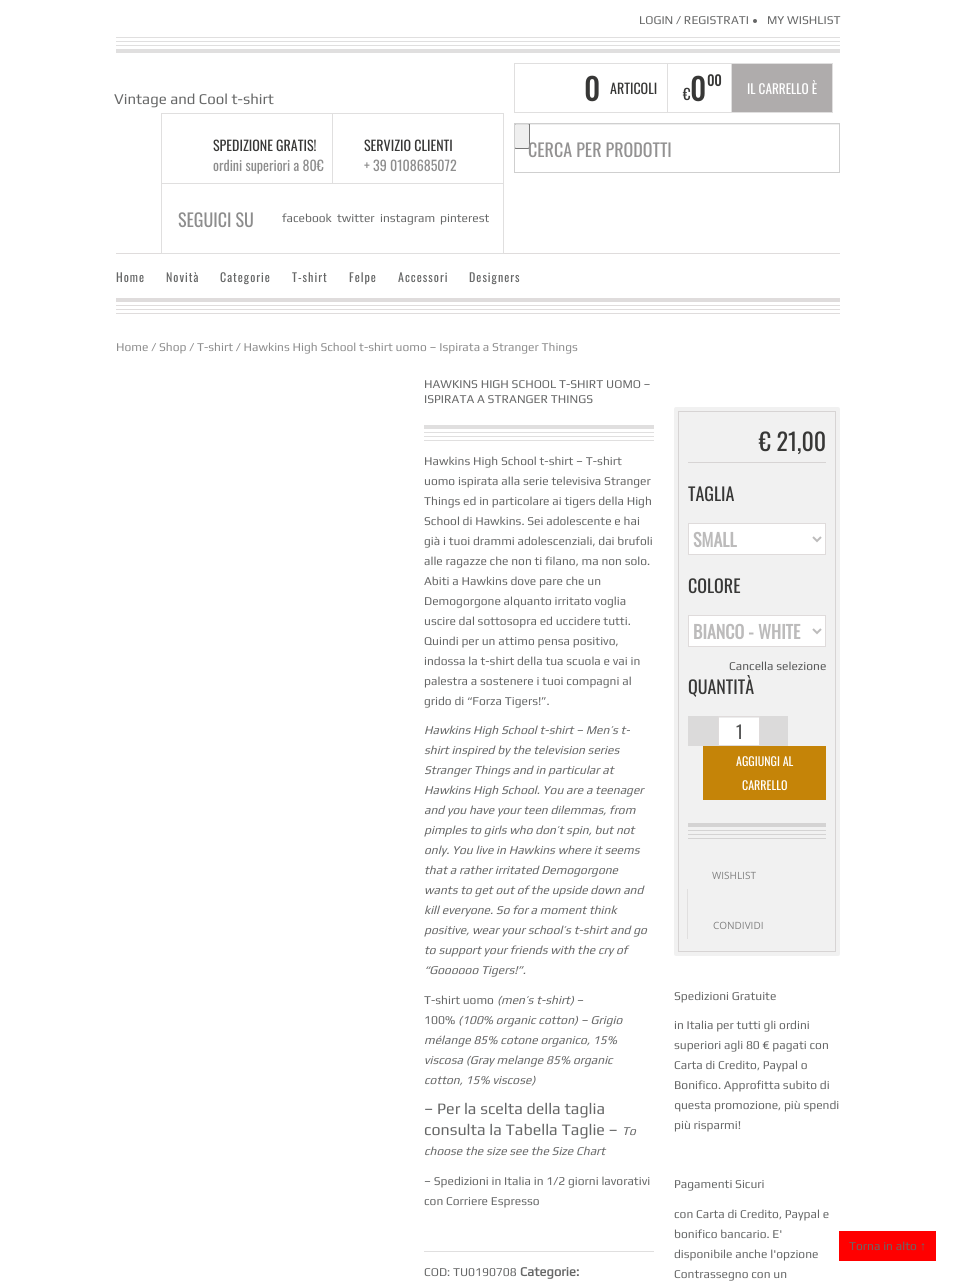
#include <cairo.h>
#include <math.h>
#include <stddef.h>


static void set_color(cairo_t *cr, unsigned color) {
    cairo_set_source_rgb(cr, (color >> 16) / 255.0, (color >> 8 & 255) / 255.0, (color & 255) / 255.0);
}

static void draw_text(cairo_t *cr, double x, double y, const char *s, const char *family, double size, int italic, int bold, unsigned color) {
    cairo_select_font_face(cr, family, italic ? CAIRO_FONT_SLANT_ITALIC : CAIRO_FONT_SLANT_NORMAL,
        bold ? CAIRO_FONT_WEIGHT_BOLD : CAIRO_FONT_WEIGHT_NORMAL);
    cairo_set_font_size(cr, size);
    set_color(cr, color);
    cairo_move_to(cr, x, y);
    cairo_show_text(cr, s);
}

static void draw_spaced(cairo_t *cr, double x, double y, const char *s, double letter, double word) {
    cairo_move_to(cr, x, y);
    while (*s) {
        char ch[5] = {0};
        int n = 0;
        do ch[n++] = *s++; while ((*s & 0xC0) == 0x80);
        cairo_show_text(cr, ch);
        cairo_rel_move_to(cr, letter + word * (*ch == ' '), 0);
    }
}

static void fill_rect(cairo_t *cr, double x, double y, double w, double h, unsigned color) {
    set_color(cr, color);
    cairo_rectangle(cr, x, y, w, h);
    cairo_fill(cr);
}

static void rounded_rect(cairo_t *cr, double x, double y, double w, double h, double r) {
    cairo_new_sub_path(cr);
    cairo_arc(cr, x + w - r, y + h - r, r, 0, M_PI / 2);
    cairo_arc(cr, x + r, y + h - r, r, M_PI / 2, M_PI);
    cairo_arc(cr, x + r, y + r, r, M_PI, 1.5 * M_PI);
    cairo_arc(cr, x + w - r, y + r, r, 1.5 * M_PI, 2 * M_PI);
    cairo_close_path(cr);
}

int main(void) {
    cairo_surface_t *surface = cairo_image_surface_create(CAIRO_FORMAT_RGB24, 956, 1281);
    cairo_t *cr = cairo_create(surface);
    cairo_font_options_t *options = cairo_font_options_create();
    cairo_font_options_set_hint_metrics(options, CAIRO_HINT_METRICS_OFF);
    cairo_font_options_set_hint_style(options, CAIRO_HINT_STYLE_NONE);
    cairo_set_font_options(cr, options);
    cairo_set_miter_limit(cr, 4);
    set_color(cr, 0xFFFFFF);
    cairo_paint(cr);
    draw_text(cr, 639, 24, "LOGIN / REGISTRATI", "Play", 12, 0, 0, 0x666767);
    cairo_new_path(cr);
    cairo_arc(cr, 755, 21, 2, 0, 2 * M_PI);
    cairo_fill(cr);
    draw_text(cr, 767, 24, "MY WISHLIST", "Play", 12, 0, 0, 0x666767);
    fill_rect(cr, 116, 37, 724, 1, 0xE0DFDF);
    fill_rect(cr, 116, 41, 724, 1, 0xE0DFDF);
    fill_rect(cr, 116, 45, 724, 1, 0xE0DFDF);
    fill_rect(cr, 116, 49, 724, 4, 0xE0DFDF);
    draw_text(cr, 114, 104, "Vintage and Cool t-shirt", "Play", 15, 0, 0, 0x666767);
    cairo_rectangle(cr, 514.5, 63.5, 153, 49);
    set_color(cr, 0xE0DFDF);
    cairo_set_line_width(cr, 1);
    cairo_stroke(cr);
    draw_text(cr, 584, 101, "0", "Oswald", 30, 0, 1, 0x373736);
    draw_text(cr, 610, 94, "ARTICOLI", "Oswald", 14, 0, 0, 0x373736);
    cairo_rectangle(cr, 667.5, 63.5, 64, 49);
    set_color(cr, 0xE0DFDF);
    cairo_stroke(cr);
    draw_text(cr, 683, 100, "€", "Oswald", 15, 0, 0, 0x373736);
    draw_text(cr, 690, 101, "0", "Oswald", 30, 0, 1, 0x373736);
    draw_text(cr, 707, 86, "00", "Oswald", 14, 0, 1, 0x373736);
    set_color(cr, 0xAFACAC);
    cairo_rectangle(cr, 731.5, 63.5, 101, 49);
    cairo_fill_preserve(cr);
    set_color(cr, 0xE0DFDF);
    cairo_stroke(cr);
    draw_text(cr, 747, 94, "IL CARRELLO È", "Oswald", 13.25, 0, 0, 0xFFFFFF);
    set_color(cr, 0xEFEFEF);
    rounded_rect(cr, 514.5, 123.5, 15, 25, 1.5);
    cairo_fill_preserve(cr);
    set_color(cr, 0x767676);
    cairo_stroke(cr);
    cairo_set_source_rgba(cr, 0, 0, 0, 0.07);
    cairo_rectangle(cr, 515, 124, 324, 1);
    cairo_fill(cr);
    cairo_rectangle(cr, 514.5, 123.5, 325, 49);
    set_color(cr, 0xCFCFCF);
    cairo_stroke(cr);
    draw_text(cr, 528, 157, "CERCA PER PRODOTTI", "Oswald", 18, 0, 0, 0x939292);
    cairo_rectangle(cr, 161.5, 113.5, 171, 70);
    set_color(cr, 0xE0DFDF);
    cairo_stroke(cr);
    draw_text(cr, 213, 151, "SPEDIZIONE GRATIS!", "Oswald", 14, 0, 0, 0x373736);
    draw_text(cr, 213, 171, "ordini superiori a 80€", "Oswald", 14, 0, 0, 0x8D8D8D);
    cairo_rectangle(cr, 332.5, 113.5, 171, 70);
    set_color(cr, 0xE0DFDF);
    cairo_stroke(cr);
    draw_text(cr, 364, 151, "SERVIZIO CLIENTI", "Oswald", 14, 0, 0, 0x373736);
    draw_text(cr, 364, 171, "+ 39 0108685072", "Oswald", 14, 0, 0, 0x8D8D8D);
    fill_rect(cr, 116, 253, 724, 1, 0xDFDCDC);
    cairo_rectangle(cr, 161.5, 183.5, 342, 70);
    set_color(cr, 0xE0DFDF);
    cairo_stroke(cr);
    draw_text(cr, 178, 227, "SEGUICI SU", "Oswald", 18, 0, 0, 0x8D8D8D);
    draw_text(cr, 282, 222, "facebook", "Play", 12, 0, 0, 0x666767);
    draw_text(cr, 337, 222, "twitter", "Play", 12, 0, 0, 0x666767);
    draw_text(cr, 380, 222, "instagram", "Play", 12, 0, 0, 0x666767);
    draw_text(cr, 440, 222, "pinterest", "Play", 12, 0, 0, 0x666767);
    cairo_select_font_face(cr, "Oswald", CAIRO_FONT_SLANT_NORMAL, CAIRO_FONT_WEIGHT_NORMAL);
    draw_spaced(cr, 116, 282, "Home", 1, 0);
    draw_spaced(cr, 166, 282, "Novità", 1, 0);
    draw_spaced(cr, 220, 282, "Categorie", 1, 0);
    draw_spaced(cr, 292, 282, "T-shirt", 1, 0);
    draw_spaced(cr, 349, 282, "Felpe", 1, 0);
    draw_spaced(cr, 398, 282, "Accessori", 1, 0);
    draw_spaced(cr, 469, 282, "Designers", 1, 0);
    fill_rect(cr, 116, 298, 724, 4, 0xDFDCDC);
    fill_rect(cr, 116, 305, 724, 1, 0xDFDCDC);
    fill_rect(cr, 116, 309, 724, 1, 0xDFDCDC);
    fill_rect(cr, 116, 313, 724, 1, 0xDFDCDC);
    draw_text(cr, 116, 351, "Home / Shop / T-shirt / Hawkins High School t-shirt uomo – Ispirata a Stranger Things", "Play", 12, 0, 0, 0x8D8D8D);
    draw_text(cr, 424, 388, "HAWKINS HIGH SCHOOL T-SHIRT UOMO –", "Play", 12, 0, 0, 0x666767);
    draw_text(cr, 424, 403, "ISPIRATA A STRANGER THINGS", "Play", 12, 0, 0, 0x666767);
    fill_rect(cr, 424, 425, 230, 4, 0xE0DFDF);
    fill_rect(cr, 424, 432, 230, 1, 0xE0DFDF);
    fill_rect(cr, 424, 436, 230, 1, 0xE0DFDF);
    fill_rect(cr, 424, 440, 230, 1, 0xE0DFDF);
    draw_text(cr, 424, 465, "Hawkins High School t-shirt – T-shirt", "Play", 12, 0, 0, 0x666767);
    draw_text(cr, 424, 485, "uomo ispirata alla serie televisiva Stranger", "Play", 12, 0, 0, 0x666767);
    draw_text(cr, 424, 505, "Things ed in particolare ai tigers della High", "Play", 12, 0, 0, 0x666767);
    draw_text(cr, 424, 525, "School di Hawkins. Sei adolescente e hai", "Play", 12, 0, 0, 0x666767);
    draw_text(cr, 424, 545, "già i tuoi drammi adolescenziali, dai brufoli", "Play", 12, 0, 0, 0x666767);
    draw_text(cr, 424, 565, "alle ragazze che non ti filano, ma non solo.", "Play", 12, 0, 0, 0x666767);
    draw_text(cr, 424, 585, "Abiti a Hawkins dove pare che un", "Play", 12, 0, 0, 0x666767);
    draw_text(cr, 424, 605, "Demogorgone alquanto irritato voglia", "Play", 12, 0, 0, 0x666767);
    draw_text(cr, 424, 625, "uscire dal sottosopra ed uccidere tutti.", "Play", 12, 0, 0, 0x666767);
    draw_text(cr, 424, 645, "Quindi per un attimo pensa positivo,", "Play", 12, 0, 0, 0x666767);
    draw_text(cr, 424, 665, "indossa la t-shirt della tua scuola e vai in", "Play", 12, 0, 0, 0x666767);
    draw_text(cr, 424, 685, "palestra a sostenere i tuoi compagni al", "Play", 12, 0, 0, 0x666767);
    draw_text(cr, 424, 705, "grido di “Forza Tigers!”.", "Play", 12, 0, 0, 0x666767);
    draw_text(cr, 424, 734, "Hawkins High School t-shirt – Men’s t-", "Play", 12, 1, 0, 0x666767);
    draw_text(cr, 424, 754, "shirt inspired by the television series", "Play", 12, 1, 0, 0x666767);
    draw_text(cr, 424, 774, "Stranger Things and in particular at", "Play", 12, 1, 0, 0x666767);
    draw_text(cr, 424, 794, "Hawkins High School. You are a teenager", "Play", 12, 1, 0, 0x666767);
    draw_text(cr, 424, 814, "and you have your teen dilemmas, from", "Play", 12, 1, 0, 0x666767);
    draw_text(cr, 424, 834, "pimples to girls who don’t spin, but not", "Play", 12, 1, 0, 0x666767);
    draw_text(cr, 424, 854, "only. You live in Hawkins where it seems", "Play", 12, 1, 0, 0x666767);
    draw_text(cr, 424, 874, "that a rather irritated Demogorgone", "Play", 12, 1, 0, 0x666767);
    draw_text(cr, 424, 894, "wants to get out of the upside down and", "Play", 12, 1, 0, 0x666767);
    draw_text(cr, 424, 914, "kill everyone. So for a moment think", "Play", 12, 1, 0, 0x666767);
    draw_text(cr, 424, 934, "positive, wear your school’s t-shirt and go", "Play", 12, 1, 0, 0x666767);
    draw_text(cr, 424, 954, "to support your friends with the cry of", "Play", 12, 1, 0, 0x666767);
    draw_text(cr, 424, 974, "“Goooooo Tigers!”.", "Play", 12, 1, 0, 0x666767);
    draw_text(cr, 424, 1004, "T-shirt uomo", "Play", 12, 0, 0, 0x666767);
    draw_text(cr, 497, 1004, "(men’s t-shirt)", "Play", 12, 1, 0, 0x666767);
    draw_text(cr, 577, 1004, "–", "Play", 12, 0, 0, 0x666767);
    draw_text(cr, 424, 1024, "100%", "Play", 12, 0, 0, 0x666767);
    draw_text(cr, 458, 1024, "(100% organic cotton) – Grigio", "Play", 12, 1, 0, 0x666767);
    draw_text(cr, 424, 1044, "mélange 85% cotone organico, 15%", "Play", 12, 1, 0, 0x666767);
    draw_text(cr, 424, 1064, "viscosa (Gray melange 85% organic", "Play", 12, 1, 0, 0x666767);
    draw_text(cr, 424, 1084, "cotton, 15% viscose)", "Play", 12, 1, 0, 0x666767);
    draw_text(cr, 424, 1114, "– Per la scelta della taglia", "Play", 16, 0, 0, 0x666767);
    draw_text(cr, 424, 1135, "consulta la Tabella Taglie –", "Play", 16, 0, 0, 0x666767);
    draw_text(cr, 622, 1135, "To", "Play", 12, 1, 0, 0x666767);
    draw_text(cr, 424, 1155, "choose the size see the Size Chart", "Play", 12, 1, 0, 0x666767);
    draw_text(cr, 424, 1185, "– Spedizioni in Italia in 1/2 giorni lavorativi", "Play", 12, 0, 0, 0x666767);
    draw_text(cr, 424, 1205, "con Corriere Espresso", "Play", 12, 0, 0, 0x666767);
    fill_rect(cr, 424, 1251, 230, 1, 0xE0DFDF);
    draw_text(cr, 424, 1276, "COD: TU0190708", "Play", 12, 0, 0, 0x666767);
    draw_text(cr, 520, 1276, "Categorie:", "Play", 13, 0, 1, 0x666767);
    set_color(cr, 0xF1F1F1);
    rounded_rect(cr, 674, 407, 166, 549, 2);
    cairo_fill(cr);
    cairo_rectangle(cr, 678.5, 411.5, 157, 540);
    set_color(cr, 0xD7D4D4);
    cairo_stroke(cr);
    fill_rect(cr, 688, 462, 138, 1, 0xD7D4D4);
    draw_text(cr, 759, 451, "€ 21,00", "Oswald", 24, 0, 0, 0x373736);
    draw_text(cr, 688, 501, "TAGLIA", "Oswald", 18, 0, 0, 0x373736);
    set_color(cr, 0xFFFFFF);
    cairo_rectangle(cr, 688.5, 523.5, 137, 31);
    cairo_fill_preserve(cr);
    set_color(cr, 0xDFDBDB);
    cairo_stroke(cr);
    cairo_new_path(cr);
    cairo_move_to(cr, 813, 537);
    cairo_line_to(cr, 817, 541);
    cairo_line_to(cr, 821, 537);
    set_color(cr, 0xBCBBBB);
    cairo_set_line_width(cr, 2);
    cairo_stroke(cr);
    draw_text(cr, 693, 547, "SMALL", "Oswald", 18, 0, 1, 0xBCBBBB);
    draw_text(cr, 688, 593, "COLORE", "Oswald", 18, 0, 0, 0x373736);
    set_color(cr, 0xFFFFFF);
    cairo_rectangle(cr, 688.5, 615.5, 137, 31);
    cairo_fill_preserve(cr);
    set_color(cr, 0xDFDBDB);
    cairo_set_line_width(cr, 1);
    cairo_stroke(cr);
    cairo_new_path(cr);
    cairo_move_to(cr, 813, 629);
    cairo_line_to(cr, 817, 633);
    cairo_line_to(cr, 821, 629);
    set_color(cr, 0xBCBBBB);
    cairo_set_line_width(cr, 2);
    cairo_stroke(cr);
    draw_text(cr, 693, 639, "BIANCO - WHITE", "Oswald", 18, 0, 1, 0xBCBBBB);
    draw_text(cr, 729, 670, "Cancella selezione", "Play", 12, 0, 0, 0x575858);
    draw_text(cr, 688, 694, "QUANTITÀ", "Oswald", 18, 0, 0, 0x373736);
    fill_rect(cr, 688, 716, 100, 30, 0xDBDADA);
    fill_rect(cr, 719, 718, 40, 27, 0xFFFFFF);
    fill_rect(cr, 719, 717, 40, 1, 0xECECEC);
    cairo_rectangle(cr, 718.5, 716.5, 41, 29);
    set_color(cr, 0xDFDBDB);
    cairo_set_line_width(cr, 1);
    cairo_stroke(cr);
    draw_text(cr, 736, 739, "1", "Oswald", 18, 0, 0, 0x575858);
    fill_rect(cr, 703, 746, 123, 54, 0xC58408);
    draw_text(cr, 736, 766, "AGGIUNGI AL", "Oswald", 12, 0, 0, 0xFFFFFF);
    draw_text(cr, 742, 790, "CARRELLO", "Oswald", 12, 0, 0, 0xFFFFFF);
    fill_rect(cr, 688, 823, 138, 4, 0xD4D3D3);
    fill_rect(cr, 688, 830, 138, 1, 0xD4D3D3);
    fill_rect(cr, 688, 834, 138, 1, 0xD4D3D3);
    fill_rect(cr, 688, 838, 138, 1, 0xD4D3D3);
    draw_text(cr, 712, 879, "WISHLIST", "Open Sans", 10, 0, 0, 0x828282);
    fill_rect(cr, 687, 889, 1, 50, 0xE0DFDF);
    draw_text(cr, 713, 929, "CONDIVIDI", "Open Sans", 10, 0, 0, 0x828282);
    draw_text(cr, 674, 1000, "Spedizioni Gratuite", "Play", 12, 0, 0, 0x666767);
    draw_text(cr, 674, 1029, "in Italia per tutti gli ordini", "Play", 12, 0, 0, 0x666767);
    draw_text(cr, 674, 1049, "superiori agli 80 € pagati con", "Play", 12, 0, 0, 0x666767);
    draw_text(cr, 674, 1069, "Carta di Credito, Paypal o", "Play", 12, 0, 0, 0x666767);
    draw_text(cr, 674, 1089, "Bonifico. Approfitta subito di", "Play", 12, 0, 0, 0x666767);
    draw_text(cr, 674, 1109, "questa promozione, più spendi", "Play", 12, 0, 0, 0x666767);
    draw_text(cr, 674, 1129, "più risparmi!", "Play", 12, 0, 0, 0x666767);
    draw_text(cr, 674, 1188, "Pagamenti Sicuri", "Play", 12, 0, 0, 0x666767);
    draw_text(cr, 674, 1218, "con Carta di Credito, Paypal e", "Play", 12, 0, 0, 0x666767);
    draw_text(cr, 674, 1238, "bonifico bancario. E'", "Play", 12, 0, 0, 0x666767);
    draw_text(cr, 674, 1258, "disponibile anche l'opzione", "Play", 12, 0, 0, 0x666767);
    draw_text(cr, 674, 1278, "Contrassegno con un", "Play", 12, 0, 0, 0x666767);
    fill_rect(cr, 839, 1231, 97, 30, 0xFF0000);
    draw_text(cr, 849, 1250, "Torna in alto", "Play", 12, 0, 0, 0x666767);
    draw_text(cr, 920, 1250, "↑", "Liberation Sans", 12, 0, 0, 0x666767);
    cairo_surface_write_to_png(surface, "output.png");
    cairo_font_options_destroy(options);
    cairo_destroy(cr);
    cairo_surface_destroy(surface);
    return 0;
}
